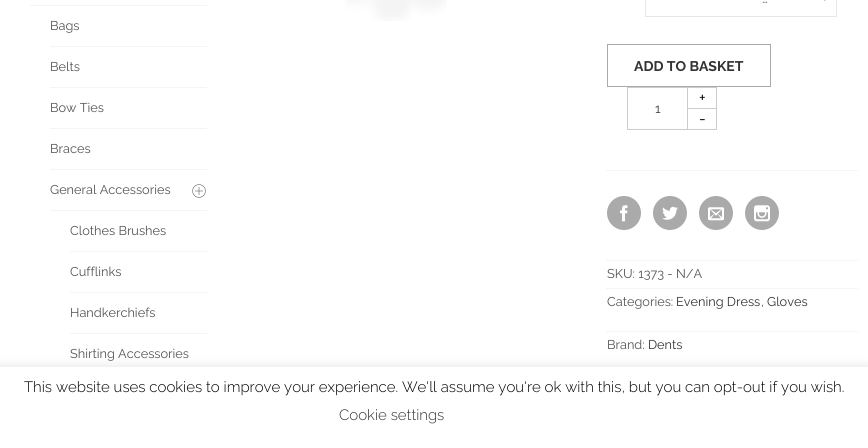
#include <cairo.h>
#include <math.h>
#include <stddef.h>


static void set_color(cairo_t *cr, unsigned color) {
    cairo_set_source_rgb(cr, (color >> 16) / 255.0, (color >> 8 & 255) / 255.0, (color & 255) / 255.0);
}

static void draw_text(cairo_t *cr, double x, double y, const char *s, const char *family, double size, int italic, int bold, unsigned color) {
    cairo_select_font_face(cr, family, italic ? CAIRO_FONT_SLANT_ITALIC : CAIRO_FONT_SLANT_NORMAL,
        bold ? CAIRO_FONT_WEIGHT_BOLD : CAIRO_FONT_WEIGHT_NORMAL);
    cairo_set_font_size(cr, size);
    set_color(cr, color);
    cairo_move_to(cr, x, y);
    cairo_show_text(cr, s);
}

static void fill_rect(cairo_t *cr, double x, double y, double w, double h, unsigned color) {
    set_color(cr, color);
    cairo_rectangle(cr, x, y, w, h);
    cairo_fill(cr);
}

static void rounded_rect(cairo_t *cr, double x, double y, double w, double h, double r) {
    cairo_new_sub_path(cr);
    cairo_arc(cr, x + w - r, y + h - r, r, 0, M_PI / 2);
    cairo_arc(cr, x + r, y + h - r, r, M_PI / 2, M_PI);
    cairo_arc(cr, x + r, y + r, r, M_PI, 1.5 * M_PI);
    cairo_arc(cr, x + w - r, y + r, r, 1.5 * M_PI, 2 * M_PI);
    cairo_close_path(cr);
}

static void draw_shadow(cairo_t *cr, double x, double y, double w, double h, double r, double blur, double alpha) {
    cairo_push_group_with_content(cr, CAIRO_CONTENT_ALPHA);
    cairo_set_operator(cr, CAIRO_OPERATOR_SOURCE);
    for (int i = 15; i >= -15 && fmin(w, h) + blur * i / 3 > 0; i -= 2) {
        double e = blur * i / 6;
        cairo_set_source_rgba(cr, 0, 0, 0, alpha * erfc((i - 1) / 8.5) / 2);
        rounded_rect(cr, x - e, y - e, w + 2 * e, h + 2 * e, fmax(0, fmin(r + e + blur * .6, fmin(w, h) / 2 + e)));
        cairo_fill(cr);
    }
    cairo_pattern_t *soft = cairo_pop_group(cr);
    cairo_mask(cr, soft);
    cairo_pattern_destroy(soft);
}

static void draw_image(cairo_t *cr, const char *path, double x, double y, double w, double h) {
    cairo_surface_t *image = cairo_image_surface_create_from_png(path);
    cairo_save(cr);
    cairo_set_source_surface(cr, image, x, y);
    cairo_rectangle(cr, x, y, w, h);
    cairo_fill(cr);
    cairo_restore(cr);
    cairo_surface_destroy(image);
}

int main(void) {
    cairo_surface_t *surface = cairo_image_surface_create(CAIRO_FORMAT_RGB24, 868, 448);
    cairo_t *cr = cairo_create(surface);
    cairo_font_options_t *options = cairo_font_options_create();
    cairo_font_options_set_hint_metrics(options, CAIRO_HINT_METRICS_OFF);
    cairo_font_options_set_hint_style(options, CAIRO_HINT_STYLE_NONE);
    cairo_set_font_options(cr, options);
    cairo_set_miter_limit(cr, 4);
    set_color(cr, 0xFFFFFF);
    cairo_paint(cr);
    fill_rect(cr, 30, 5, 177, 1, 0xF4F4F4);
    fill_rect(cr, 50, 46, 157, 1, 0xF4F4F4);
    draw_text(cr, 50, 30, "Bags", "Raleway", 12.75, 0, 0, 0x555555);
    fill_rect(cr, 50, 87, 157, 1, 0xF4F4F4);
    draw_text(cr, 50, 71, "Belts", "Raleway", 12.75, 0, 0, 0x555555);
    fill_rect(cr, 50, 128, 157, 1, 0xF4F4F4);
    draw_text(cr, 50, 112, "Bow Ties", "Raleway", 12.75, 0, 0, 0x555555);
    fill_rect(cr, 50, 169, 157, 1, 0xF4F4F4);
    draw_text(cr, 50, 153, "Braces", "Raleway", 12.75, 0, 0, 0x555555);
    fill_rect(cr, 50, 210, 157, 1, 0xF4F4F4);
    draw_text(cr, 50, 194, "General Accessories", "Raleway", 12.75, 0, 0, 0x555555);
    draw_image(cr, "assets/img1.png", 192, 184, 14, 14);
    fill_rect(cr, 70, 251, 137, 1, 0xF4F4F4);
    draw_text(cr, 70, 235, "Clothes Brushes", "Raleway", 12.75, 0, 0, 0x555555);
    fill_rect(cr, 70, 292, 137, 1, 0xF4F4F4);
    draw_text(cr, 70, 276, "Cufflinks", "Raleway", 12.75, 0, 0, 0x555555);
    fill_rect(cr, 70, 333, 137, 1, 0xF4F4F4);
    draw_text(cr, 70, 317, "Handkerchiefs", "Raleway", 12.75, 0, 0, 0x555555);
    draw_text(cr, 70, 358, "Shirting Accessories", "Raleway", 12.75, 0, 0, 0x555555);
    draw_image(cr, "assets/img2.png", 345, 0, 102, 21);
    draw_image(cr, "assets/img3.png", 824, 0, 2, 1);
    cairo_rectangle(cr, 645.5, -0.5, 191, 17);
    set_color(cr, 0xE6E6E6);
    cairo_set_line_width(cr, 1);
    cairo_stroke(cr);
    draw_text(cr, 762, 3, "…", "Raleway", 13, 0, 0, 0x555555);
    cairo_rectangle(cr, 607.5, 44.5, 163, 42);
    set_color(cr, 0xAAAAAA);
    cairo_stroke(cr);
    draw_text(cr, 634, 71, "ADD TO BASKET", "Raleway", 14, 0, 1, 0x333333);
    cairo_rectangle(cr, 627.5, 87.5, 60, 42);
    set_color(cr, 0xCCCCCC);
    cairo_stroke(cr);
    cairo_rectangle(cr, 687.5, 87.5, 29, 21);
    cairo_stroke(cr);
    draw_text(cr, 699, 103, "+", "Raleway", 16, 0, 0, 0x000000);
    draw_text(cr, 655, 113, "1", "Raleway", 13, 0, 0, 0x404040);
    cairo_rectangle(cr, 687.5, 108.5, 29, 21);
    set_color(cr, 0xCCCCCC);
    cairo_stroke(cr);
    draw_text(cr, 699, 124, "-", "Raleway", 16, 0, 0, 0x000000);
    cairo_new_path(cr);
    cairo_move_to(cr, 607, 170.5);
    cairo_line_to(cr, 858, 170.5);
    set_color(cr, 0xECECEC);
    cairo_set_dash(cr, (double[]){1, 1}, 2, 0);
    cairo_stroke(cr);
    set_color(cr, 0xAAAAAA);
    cairo_arc(cr, 624, 213, 17, 0, 2 * M_PI);
    cairo_fill(cr);
    draw_image(cr, "assets/img4.png", 620, 205, 8, 17);
    cairo_arc(cr, 670, 213, 17, 0, 2 * M_PI);
    cairo_fill(cr);
    draw_image(cr, "assets/img5.png", 662, 206, 16, 14);
    cairo_arc(cr, 716, 213, 17, 0, 2 * M_PI);
    cairo_fill(cr);
    draw_image(cr, "assets/img6.png", 708, 207, 16, 14);
    cairo_arc(cr, 762, 213, 17, 0, 2 * M_PI);
    cairo_fill(cr);
    draw_image(cr, "assets/img7.png", 754, 205, 16, 17);
    cairo_new_path(cr);
    cairo_move_to(cr, 607, 260.5);
    cairo_line_to(cr, 858, 260.5);
    set_color(cr, 0xECECEC);
    cairo_stroke(cr);
    draw_text(cr, 607, 278, "SKU: 1373 - N/A", "Raleway", 12.75, 0, 0, 0x555555);
    cairo_new_path(cr);
    cairo_move_to(cr, 607, 288.5);
    cairo_line_to(cr, 858, 288.5);
    set_color(cr, 0xECECEC);
    cairo_stroke(cr);
    draw_text(cr, 607, 306, "Categories:", "Raleway", 12.75, 0, 0, 0x555555);
    draw_text(cr, 676, 306, "Evening Dress", "Raleway", 12.75, 0, 0, 0x333333);
    draw_text(cr, 761, 306, ",", "Raleway", 12.75, 0, 0, 0x555555);
    draw_text(cr, 767, 306, "Gloves", "Raleway", 12.75, 0, 0, 0x333333);
    cairo_new_path(cr);
    cairo_move_to(cr, 607, 331.5);
    cairo_line_to(cr, 858, 331.5);
    set_color(cr, 0xECECEC);
    cairo_stroke(cr);
    draw_text(cr, 607, 349, "Brand:", "Raleway", 12.75, 0, 0, 0x555555);
    draw_text(cr, 648, 349, "Dents", "Raleway", 12.75, 0, 0, 0x333333);
    set_color(cr, 0xACABAB);
    draw_shadow(cr, 0, 366, 868, 81, 0, 5, 0.3);
    fill_rect(cr, 0, 367, 868, 81, 0xFFFFFF);
    draw_text(cr, 24, 392, "This website uses cookies to improve your experience. We'll assume you're ok with this, but you can opt-out if you wish.", "Raleway Light", 15, 0, 0, 0x000000);
    draw_text(cr, 339, 420, "Cookie settings", "Raleway Light", 15, 0, 0, 0x333333);
    cairo_surface_write_to_png(surface, "output.png");
    cairo_font_options_destroy(options);
    cairo_destroy(cr);
    cairo_surface_destroy(surface);
    return 0;
}
